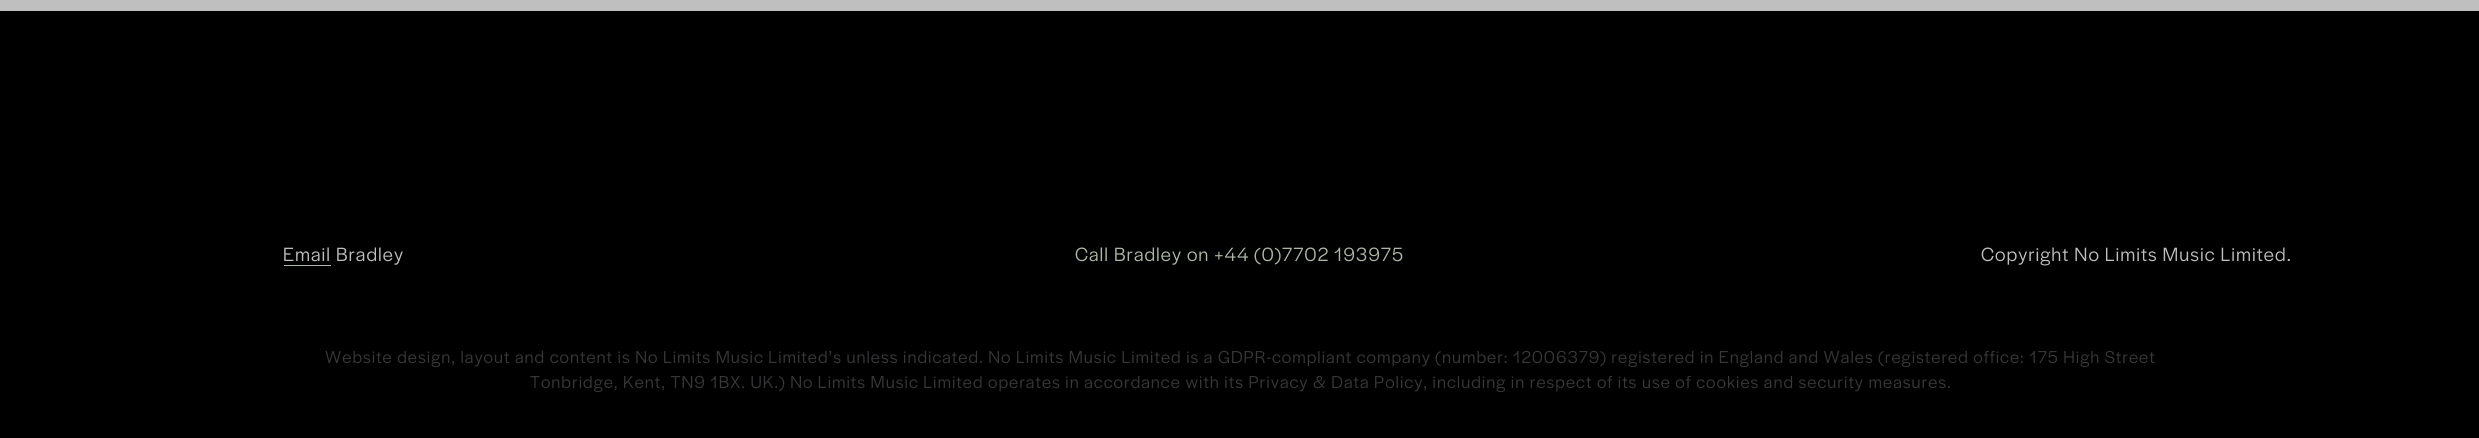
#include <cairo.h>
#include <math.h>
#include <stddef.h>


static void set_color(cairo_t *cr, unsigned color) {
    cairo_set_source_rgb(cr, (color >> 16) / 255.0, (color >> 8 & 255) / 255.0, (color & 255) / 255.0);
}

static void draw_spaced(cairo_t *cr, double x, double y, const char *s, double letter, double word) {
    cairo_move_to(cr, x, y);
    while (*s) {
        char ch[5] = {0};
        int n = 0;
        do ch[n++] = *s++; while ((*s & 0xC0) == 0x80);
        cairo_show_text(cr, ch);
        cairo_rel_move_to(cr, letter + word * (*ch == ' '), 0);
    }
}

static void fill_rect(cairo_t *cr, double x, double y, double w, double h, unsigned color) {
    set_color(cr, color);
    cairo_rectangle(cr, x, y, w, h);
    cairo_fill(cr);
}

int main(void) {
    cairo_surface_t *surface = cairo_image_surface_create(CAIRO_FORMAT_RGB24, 2479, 438);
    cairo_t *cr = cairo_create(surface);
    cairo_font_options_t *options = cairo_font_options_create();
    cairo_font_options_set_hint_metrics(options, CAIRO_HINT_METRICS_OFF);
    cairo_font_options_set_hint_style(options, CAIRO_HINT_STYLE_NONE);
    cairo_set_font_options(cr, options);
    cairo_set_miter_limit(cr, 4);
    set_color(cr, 0xBFBFBF);
    cairo_paint(cr);
    fill_rect(cr, 0, 11, 2479, 427, 0x000000);
    cairo_select_font_face(cr, "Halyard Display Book", CAIRO_FONT_SLANT_NORMAL, CAIRO_FONT_WEIGHT_NORMAL);
    cairo_set_font_size(cr, 20);
    set_color(cr, 0xBFBFBF);
    draw_spaced(cr, 283, 261, "Email Bradley", 1, 0);
    fill_rect(cr, 284, 265, 47, 1, 0xAFB8A8);
    draw_spaced(cr, 1075, 261, "Call Bradley on +44 (0)7702 193975", 1, 0);
    set_color(cr, 0xBFBFBF);
    draw_spaced(cr, 1981, 261, "Copyright No Limits Music Limited.", 1, 0);
    cairo_set_font_size(cr, 18);
    set_color(cr, 0x38383B);
    draw_spaced(cr, 325, 363, "Website design, layout and content is No Limits Music Limited’s unless indicated. No Limits Music Limited is a GDPR-compliant company (number: 12006379) registered in England and Wales (registered office: 175 High Street", 1, 0);
    draw_spaced(cr, 530, 388, "Tonbridge, Kent, TN9 1BX. UK.) No Limits Music Limited operates in accordance with its Privacy & Data Policy, including in respect of its use of cookies and security measures.", 1, 0);
    cairo_surface_write_to_png(surface, "output.png");
    cairo_font_options_destroy(options);
    cairo_destroy(cr);
    cairo_surface_destroy(surface);
    return 0;
}
